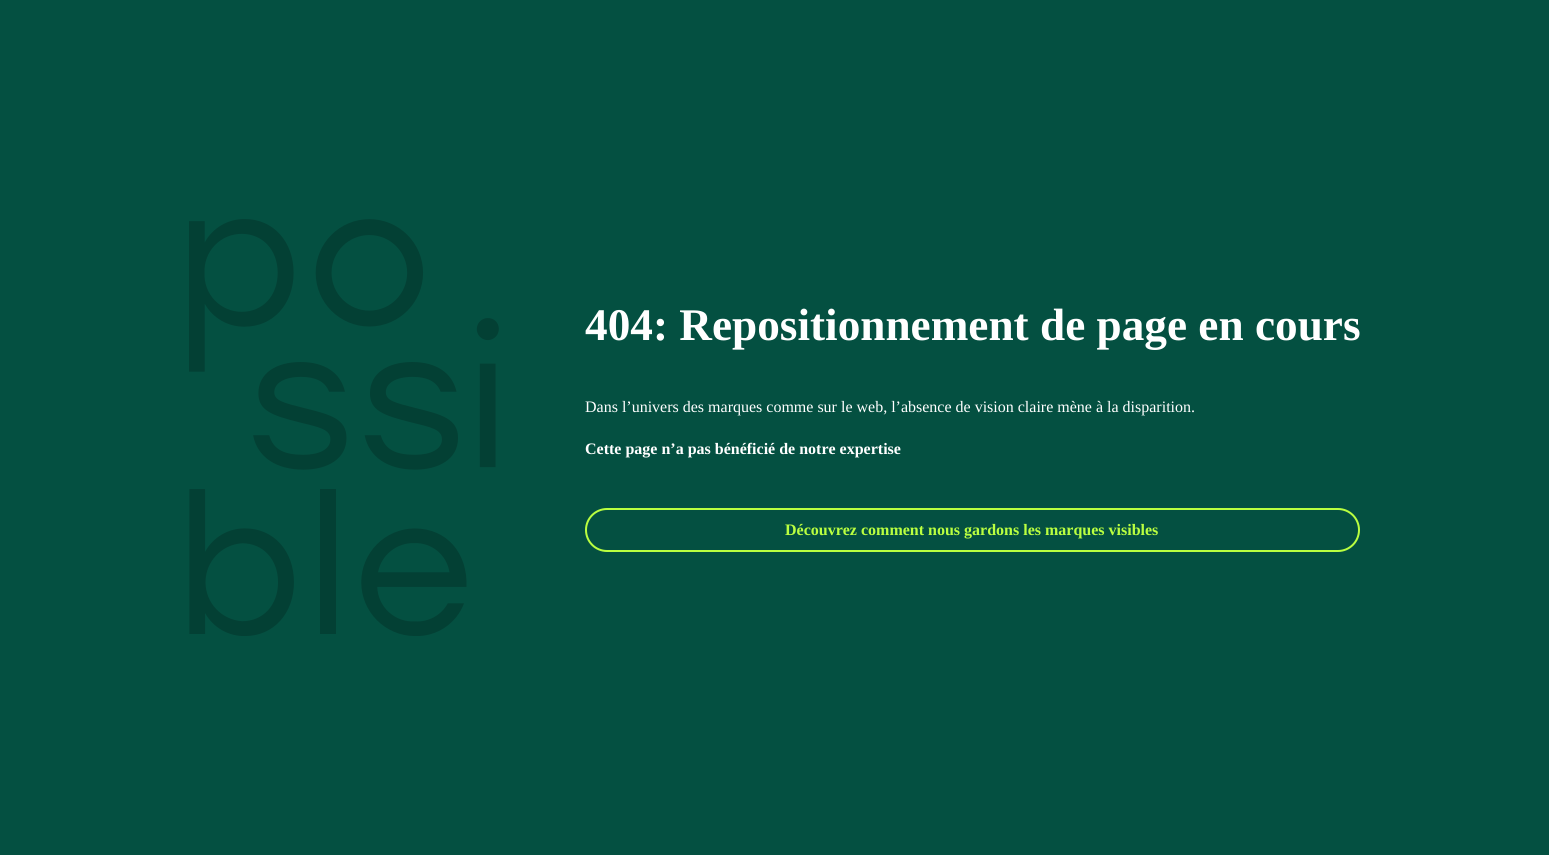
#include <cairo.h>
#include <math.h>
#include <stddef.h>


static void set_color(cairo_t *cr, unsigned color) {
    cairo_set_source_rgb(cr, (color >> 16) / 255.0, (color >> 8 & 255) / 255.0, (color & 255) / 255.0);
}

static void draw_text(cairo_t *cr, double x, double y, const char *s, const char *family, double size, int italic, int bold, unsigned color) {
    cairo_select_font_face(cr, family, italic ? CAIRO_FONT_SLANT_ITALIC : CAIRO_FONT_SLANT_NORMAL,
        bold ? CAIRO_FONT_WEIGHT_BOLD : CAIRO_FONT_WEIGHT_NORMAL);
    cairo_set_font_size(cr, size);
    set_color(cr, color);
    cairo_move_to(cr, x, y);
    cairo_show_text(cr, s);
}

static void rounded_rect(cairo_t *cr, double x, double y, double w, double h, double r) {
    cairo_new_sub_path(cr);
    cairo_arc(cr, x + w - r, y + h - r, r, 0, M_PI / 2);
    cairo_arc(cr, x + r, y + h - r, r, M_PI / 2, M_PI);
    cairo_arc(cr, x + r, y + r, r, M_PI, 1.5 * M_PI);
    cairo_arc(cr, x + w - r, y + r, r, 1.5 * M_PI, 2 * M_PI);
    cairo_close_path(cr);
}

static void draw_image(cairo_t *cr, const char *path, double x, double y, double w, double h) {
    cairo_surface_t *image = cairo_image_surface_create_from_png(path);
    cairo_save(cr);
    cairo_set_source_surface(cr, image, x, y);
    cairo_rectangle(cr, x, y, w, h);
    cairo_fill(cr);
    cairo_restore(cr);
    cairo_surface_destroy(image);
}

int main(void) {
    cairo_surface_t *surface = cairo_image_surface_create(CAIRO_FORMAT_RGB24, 1549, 855);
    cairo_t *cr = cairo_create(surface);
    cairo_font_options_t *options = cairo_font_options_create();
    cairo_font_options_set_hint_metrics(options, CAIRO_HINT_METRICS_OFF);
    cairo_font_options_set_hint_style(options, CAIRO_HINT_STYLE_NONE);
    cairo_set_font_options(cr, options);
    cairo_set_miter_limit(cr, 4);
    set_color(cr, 0x045041);
    cairo_paint(cr);
    draw_image(cr, "assets/img1.png", 189, 219, 310, 417);
    draw_text(cr, 585, 340, "404: Repositionnement de page en cours", "Liberation Serif", 45.25, 0, 1, 0xFFFFFF);
    draw_text(cr, 585, 412, "Dans l’univers des marques comme sur le web, l’absence de vision claire mène à la disparition.", "Liberation Serif", 16, 0, 0, 0xFFFFFF);
    draw_text(cr, 585, 454, "Cette page n’a pas bénéficié de notre expertise", "Liberation Serif", 16, 0, 1, 0xFFFFFF);
    rounded_rect(cr, 586, 509, 773, 42, 21);
    set_color(cr, 0xBAFF40);
    cairo_stroke(cr);
    draw_text(cr, 785, 535, "Découvrez comment nous gardons les marques visibles", "Liberation Serif", 16, 0, 1, 0xBAFF40);
    cairo_surface_write_to_png(surface, "output.png");
    cairo_font_options_destroy(options);
    cairo_destroy(cr);
    cairo_surface_destroy(surface);
    return 0;
}
